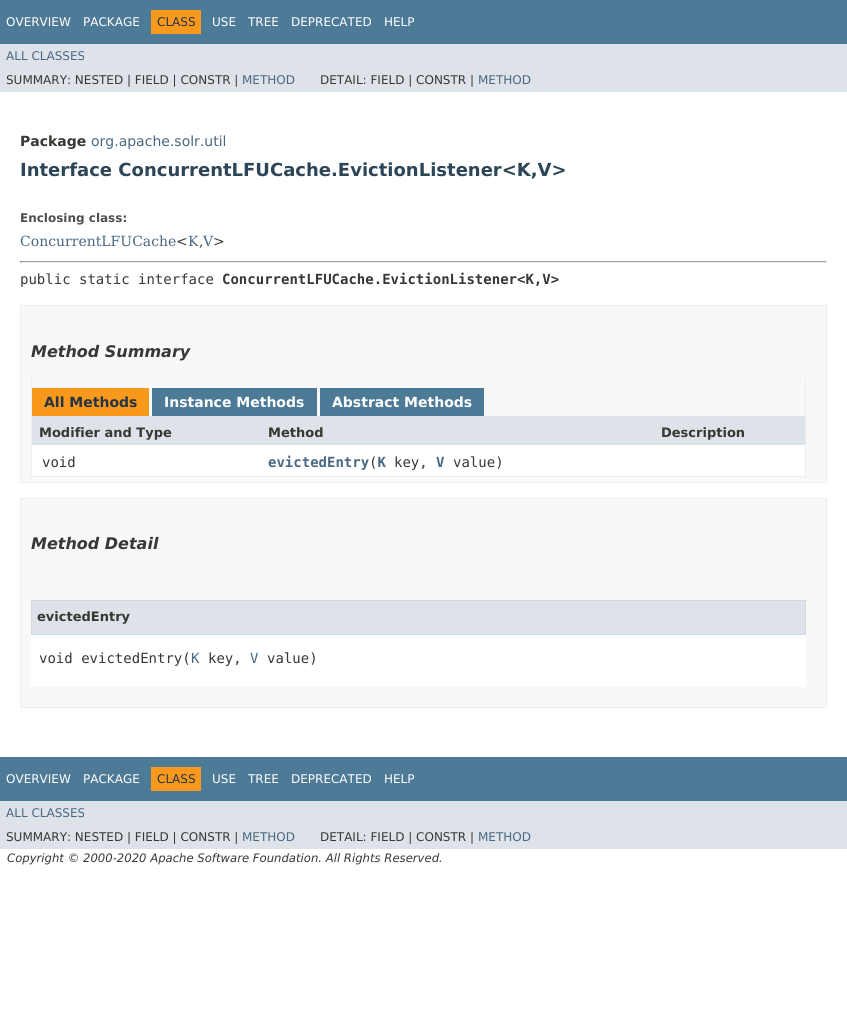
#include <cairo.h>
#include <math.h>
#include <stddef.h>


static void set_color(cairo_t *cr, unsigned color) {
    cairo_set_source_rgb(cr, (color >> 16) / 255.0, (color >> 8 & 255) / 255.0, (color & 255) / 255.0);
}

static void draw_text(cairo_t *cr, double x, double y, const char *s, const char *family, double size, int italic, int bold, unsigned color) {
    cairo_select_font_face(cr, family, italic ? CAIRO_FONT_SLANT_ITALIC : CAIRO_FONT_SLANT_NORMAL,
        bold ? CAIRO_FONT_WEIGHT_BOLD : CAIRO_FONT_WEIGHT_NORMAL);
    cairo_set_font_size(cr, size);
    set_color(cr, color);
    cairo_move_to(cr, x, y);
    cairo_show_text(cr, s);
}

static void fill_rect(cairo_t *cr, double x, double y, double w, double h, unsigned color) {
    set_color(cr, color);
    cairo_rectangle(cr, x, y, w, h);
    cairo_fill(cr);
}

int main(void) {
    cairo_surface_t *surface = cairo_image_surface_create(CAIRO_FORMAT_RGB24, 847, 1015);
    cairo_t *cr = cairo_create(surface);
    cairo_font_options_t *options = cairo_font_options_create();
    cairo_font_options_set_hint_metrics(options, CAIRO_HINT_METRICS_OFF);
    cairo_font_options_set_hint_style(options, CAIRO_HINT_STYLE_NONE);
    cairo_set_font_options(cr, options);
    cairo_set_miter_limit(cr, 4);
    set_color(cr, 0xFFFFFF);
    cairo_paint(cr);
    fill_rect(cr, 0, 0, 847, 44, 0x4D7A97);
    draw_text(cr, 6, 26, "OVERVIEW", "DejaVu Sans", 12, 0, 0, 0xFFFFFF);
    draw_text(cr, 83, 26, "PACKAGE", "DejaVu Sans", 12, 0, 0, 0xFFFFFF);
    fill_rect(cr, 151, 10, 50, 24, 0xF8981D);
    draw_text(cr, 157, 26, "CLASS", "DejaVu Sans", 12, 0, 0, 0x253441);
    draw_text(cr, 212, 26, "USE", "DejaVu Sans", 12, 0, 0, 0xFFFFFF);
    draw_text(cr, 248, 26, "TREE", "DejaVu Sans", 12, 0, 0, 0xFFFFFF);
    draw_text(cr, 291, 26, "DEPRECATED", "DejaVu Sans", 12, 0, 0, 0xFFFFFF);
    draw_text(cr, 384, 26, "HELP", "DejaVu Sans", 12, 0, 0, 0xFFFFFF);
    fill_rect(cr, 0, 44, 847, 48, 0xDEE3E9);
    draw_text(cr, 6, 60, "ALL CLASSES", "DejaVu Sans", 12, 0, 0, 0x4A6782);
    draw_text(cr, 6, 84, "SUMMARY: NESTED | FIELD | CONSTR |", "DejaVu Sans", 12, 0, 0, 0x353833);
    draw_text(cr, 242, 84, "METHOD", "DejaVu Sans", 12, 0, 0, 0x4A6782);
    draw_text(cr, 320, 84, "DETAIL: FIELD | CONSTR |", "DejaVu Sans", 12, 0, 0, 0x353833);
    draw_text(cr, 478, 84, "METHOD", "DejaVu Sans", 12, 0, 0, 0x4A6782);
    draw_text(cr, 20, 146, "Package", "DejaVu Sans", 14, 0, 1, 0x353833);
    draw_text(cr, 91, 146, "org.apache.solr.util", "DejaVu Sans", 14, 0, 0, 0x4A6782);
    draw_text(cr, 20, 176, "Interface ConcurrentLFUCache.EvictionListener<K,V>", "DejaVu Sans", 18, 0, 1, 0x2C4557);
    draw_text(cr, 20, 222, "Enclosing class:", "DejaVu Sans", 12, 0, 1, 0x4E4E4E);
    draw_text(cr, 20, 246, "ConcurrentLFUCache", "DejaVu Serif", 14, 0, 0, 0x4A6782);
    draw_text(cr, 176, 246, "<", "DejaVu Serif", 14, 0, 0, 0x353833);
    draw_text(cr, 188, 246, "K V", "DejaVu Serif", 14, 0, 0, 0x4A6782);
    draw_text(cr, 213, 246, ">", "DejaVu Serif", 14, 0, 0, 0x353833);
    draw_text(cr, 199, 246, ",", "DejaVu Serif", 14, 0, 0, 0x353833);
    fill_rect(cr, 20, 261, 807, 1, 0x9F9F9F);
    fill_rect(cr, 826, 261, 1, 2, 0xEEEEEE);
    fill_rect(cr, 20, 262, 807, 1, 0xEEEEEE);
    fill_rect(cr, 20, 261, 1, 2, 0x9F9F9F);
    draw_text(cr, 20, 284, "public static interface", "DejaVu Sans Mono", 14, 0, 0, 0x353833);
    draw_text(cr, 222, 284, "ConcurrentLFUCache.EvictionListener<K,V>", "DejaVu Sans Mono", 14, 0, 1, 0x353833);
    set_color(cr, 0xF8F8F8);
    cairo_rectangle(cr, 20.5, 305.5, 806, 177);
    cairo_fill_preserve(cr);
    set_color(cr, 0xEDEDED);
    cairo_set_line_width(cr, 1);
    cairo_stroke(cr);
    draw_text(cr, 31, 357, "Method Summary", "DejaVu Sans", 16, 1, 1, 0x353833);
    fill_rect(cr, 805, 378, 1, 99, 0xEEEEEE);
    fill_rect(cr, 31, 476, 775, 1, 0xEEEEEE);
    fill_rect(cr, 31, 378, 1, 99, 0xEEEEEE);
    fill_rect(cr, 32, 388, 117, 28, 0xF8981D);
    draw_text(cr, 44, 407, "All Methods", "DejaVu Sans", 14, 0, 1, 0x253441);
    fill_rect(cr, 152, 388, 165, 28, 0x4D7A97);
    draw_text(cr, 164, 407, "Instance Methods", "DejaVu Sans", 14, 0, 1, 0xFFFFFF);
    fill_rect(cr, 320, 388, 164, 28, 0x4D7A97);
    draw_text(cr, 332, 407, "Abstract Methods", "DejaVu Sans", 14, 0, 1, 0xFFFFFF);
    fill_rect(cr, 32, 416, 773, 29, 0xDEE3E9);
    draw_text(cr, 39, 437, "Modifier and Type", "DejaVu Sans", 13, 0, 1, 0x353833);
    draw_text(cr, 268, 437, "Method", "DejaVu Sans", 13, 0, 1, 0x353833);
    draw_text(cr, 661, 437, "Description", "DejaVu Sans", 13, 0, 1, 0x353833);
    fill_rect(cr, 32, 445, 773, 31, 0xFFFFFF);
    draw_text(cr, 42, 467, "void", "DejaVu Sans Mono", 14, 0, 0, 0x353833);
    draw_text(cr, 268, 467, "evictedEntry K", "DejaVu Sans Mono", 14, 0, 1, 0x4A6782);
    draw_text(cr, 369, 467, "(", "DejaVu Sans Mono", 14, 0, 0, 0x353833);
    draw_text(cr, 394, 467, "key,", "DejaVu Sans Mono", 14, 0, 0, 0x353833);
    draw_text(cr, 436, 467, "V", "DejaVu Sans Mono", 14, 0, 1, 0x4A6782);
    draw_text(cr, 453, 467, "value)", "DejaVu Sans Mono", 14, 0, 0, 0x353833);
    set_color(cr, 0xF8F8F8);
    cairo_rectangle(cr, 20.5, 498.5, 806, 209);
    cairo_fill_preserve(cr);
    set_color(cr, 0xEDEDED);
    cairo_stroke(cr);
    draw_text(cr, 31, 549, "Method Detail", "DejaVu Sans", 16, 1, 1, 0x353833);
    fill_rect(cr, 31, 635, 775, 52, 0xFFFFFF);
    set_color(cr, 0xDEE3E9);
    cairo_rectangle(cr, 31.5, 600.5, 774, 34);
    cairo_fill_preserve(cr);
    set_color(cr, 0xD0D9E0);
    cairo_stroke(cr);
    draw_text(cr, 37, 621, "evictedEntry", "DejaVu Sans", 13, 0, 1, 0x353833);
    draw_text(cr, 39, 663, "void evictedEntry(", "DejaVu Sans Mono", 14, 0, 0, 0x353833);
    draw_text(cr, 191, 663, "K", "DejaVu Sans Mono", 14, 0, 0, 0x4A6782);
    draw_text(cr, 208, 663, "key,", "DejaVu Sans Mono", 14, 0, 0, 0x353833);
    draw_text(cr, 250, 663, "V", "DejaVu Sans Mono", 14, 0, 0, 0x4A6782);
    draw_text(cr, 267, 663, "value)", "DejaVu Sans Mono", 14, 0, 0, 0x353833);
    fill_rect(cr, 0, 757, 847, 44, 0x4D7A97);
    draw_text(cr, 6, 783, "OVERVIEW", "DejaVu Sans", 12, 0, 0, 0xFFFFFF);
    draw_text(cr, 83, 783, "PACKAGE", "DejaVu Sans", 12, 0, 0, 0xFFFFFF);
    fill_rect(cr, 151, 767, 50, 24, 0xF8981D);
    draw_text(cr, 157, 783, "CLASS", "DejaVu Sans", 12, 0, 0, 0x253441);
    draw_text(cr, 212, 783, "USE", "DejaVu Sans", 12, 0, 0, 0xFFFFFF);
    draw_text(cr, 248, 783, "TREE", "DejaVu Sans", 12, 0, 0, 0xFFFFFF);
    draw_text(cr, 291, 783, "DEPRECATED", "DejaVu Sans", 12, 0, 0, 0xFFFFFF);
    draw_text(cr, 384, 783, "HELP", "DejaVu Sans", 12, 0, 0, 0xFFFFFF);
    fill_rect(cr, 0, 801, 847, 48, 0xDEE3E9);
    draw_text(cr, 6, 817, "ALL CLASSES", "DejaVu Sans", 12, 0, 0, 0x4A6782);
    draw_text(cr, 6, 841, "SUMMARY: NESTED | FIELD | CONSTR |", "DejaVu Sans", 12, 0, 0, 0x353833);
    draw_text(cr, 242, 841, "METHOD", "DejaVu Sans", 12, 0, 0, 0x4A6782);
    draw_text(cr, 320, 841, "DETAIL: FIELD | CONSTR |", "DejaVu Sans", 12, 0, 0, 0x353833);
    draw_text(cr, 478, 841, "METHOD", "DejaVu Sans", 12, 0, 0, 0x4A6782);
    draw_text(cr, 7, 862, "Copyright © 2000-2020 Apache Software Foundation. All Rights Reserved.", "DejaVu Sans", 11.65, 1, 0, 0x353833);
    cairo_surface_write_to_png(surface, "output.png");
    cairo_font_options_destroy(options);
    cairo_destroy(cr);
    cairo_surface_destroy(surface);
    return 0;
}
